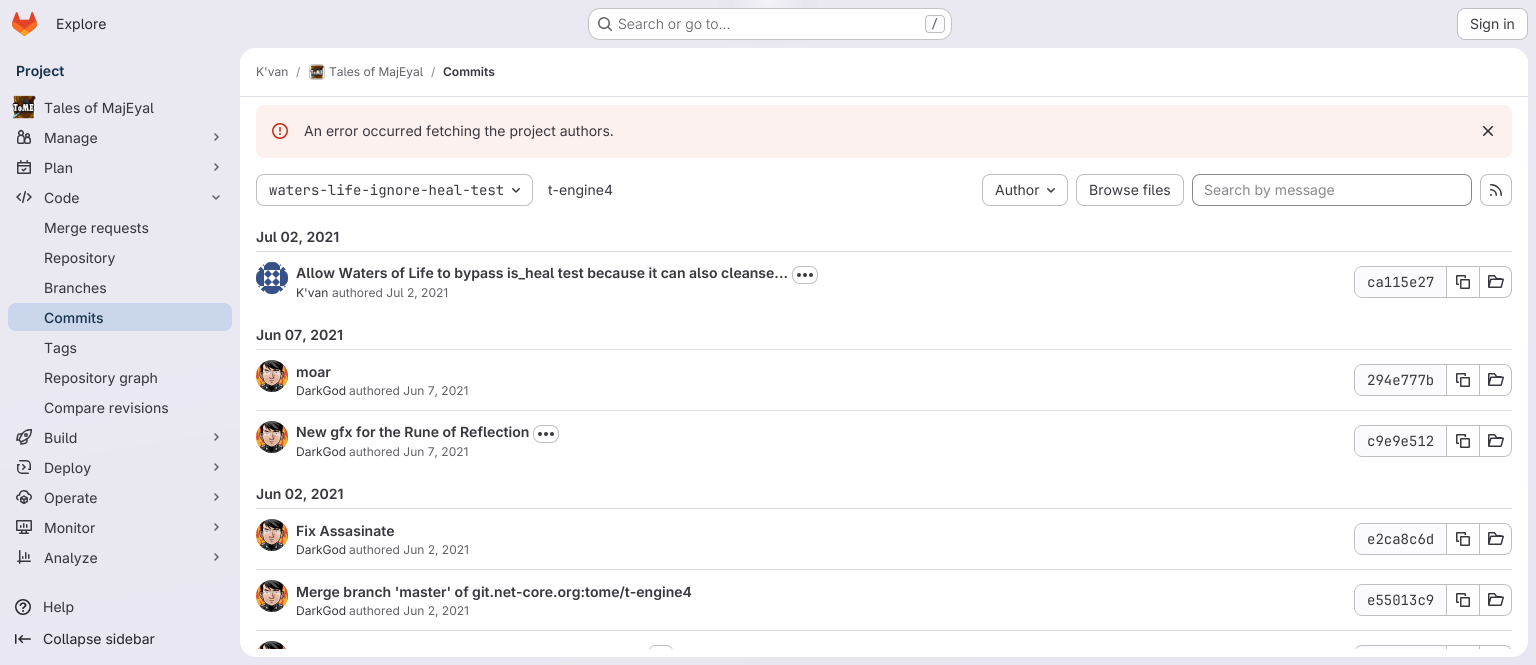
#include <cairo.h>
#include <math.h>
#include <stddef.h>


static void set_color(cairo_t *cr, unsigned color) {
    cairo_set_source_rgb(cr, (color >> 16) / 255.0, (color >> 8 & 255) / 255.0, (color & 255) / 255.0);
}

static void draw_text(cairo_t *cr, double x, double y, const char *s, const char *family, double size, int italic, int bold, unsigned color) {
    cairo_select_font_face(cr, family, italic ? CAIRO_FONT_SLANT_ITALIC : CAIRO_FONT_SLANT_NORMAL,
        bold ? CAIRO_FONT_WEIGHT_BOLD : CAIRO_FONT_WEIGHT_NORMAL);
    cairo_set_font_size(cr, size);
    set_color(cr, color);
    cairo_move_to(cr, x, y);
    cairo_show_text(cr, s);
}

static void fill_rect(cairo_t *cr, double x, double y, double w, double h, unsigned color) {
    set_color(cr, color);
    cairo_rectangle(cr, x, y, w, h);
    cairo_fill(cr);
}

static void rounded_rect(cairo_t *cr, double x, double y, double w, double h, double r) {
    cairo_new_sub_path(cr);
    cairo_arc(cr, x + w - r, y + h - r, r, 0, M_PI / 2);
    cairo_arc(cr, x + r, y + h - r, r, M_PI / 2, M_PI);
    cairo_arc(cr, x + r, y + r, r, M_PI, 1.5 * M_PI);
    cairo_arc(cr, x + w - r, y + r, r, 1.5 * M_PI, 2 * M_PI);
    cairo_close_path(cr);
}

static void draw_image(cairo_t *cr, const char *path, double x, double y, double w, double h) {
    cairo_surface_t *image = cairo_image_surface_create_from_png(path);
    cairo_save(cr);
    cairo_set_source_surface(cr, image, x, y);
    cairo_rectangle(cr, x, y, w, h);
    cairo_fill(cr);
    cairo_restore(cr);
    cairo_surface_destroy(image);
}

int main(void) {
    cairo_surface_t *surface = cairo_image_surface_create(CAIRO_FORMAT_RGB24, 1536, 665);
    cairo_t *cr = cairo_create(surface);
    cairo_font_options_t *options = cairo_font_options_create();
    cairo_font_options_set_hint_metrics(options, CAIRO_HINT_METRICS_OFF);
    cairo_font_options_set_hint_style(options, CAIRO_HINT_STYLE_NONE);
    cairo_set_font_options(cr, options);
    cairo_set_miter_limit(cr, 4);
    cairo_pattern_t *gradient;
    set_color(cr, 0xFFFFFF);
    cairo_paint(cr);
    gradient = cairo_pattern_create_linear(848, 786, 688, -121);
    cairo_pattern_add_color_stop_rgba(gradient, 0, 0.91, 0.902, 0.941, 1);
    cairo_pattern_add_color_stop_rgba(gradient, 0.7, 0.918, 0.914, 0.949, 1);
    cairo_set_source(cr, gradient);
    cairo_pattern_destroy(gradient);
    cairo_rectangle(cr, 0, 0, 1536, 665);
    cairo_fill(cr);
    gradient = cairo_pattern_create_radial(0, 0, 0, 0, 0, 1);
    cairo_pattern_set_matrix(gradient, &(cairo_matrix_t){1.0 / 768, 0, 0, 1.0 / 665, -1.0 * 768 / 768, -1.0 * 0 / 665});
    cairo_pattern_add_color_stop_rgba(gradient, 0, 0.894, 0.886, 0.929, 1);
    cairo_pattern_add_color_stop_rgba(gradient, 0.09, 0.894, 0.886, 0.929, 0);
    cairo_set_source(cr, gradient);
    cairo_pattern_destroy(gradient);
    cairo_rectangle(cr, 718, 0, 100, 43);
    cairo_fill(cr);
    gradient = cairo_pattern_create_radial(0, 0, 0, 0, 0, 1);
    cairo_pattern_set_matrix(gradient, &(cairo_matrix_t){1.0 / 768, 0, 0, 1.0 / 665, -1.0 * 768 / 768, -1.0 * 0 / 665});
    cairo_pattern_add_color_stop_rgba(gradient, 0, 0.894, 0.886, 0.925, 1);
    cairo_pattern_add_color_stop_rgba(gradient, 0.07, 0.894, 0.886, 0.925, 0);
    cairo_set_source(cr, gradient);
    cairo_pattern_destroy(gradient);
    cairo_rectangle(cr, 743, 0, 52, 22);
    cairo_fill(cr);
    gradient = cairo_pattern_create_radial(768, 0, 0, 768, 0, 1016);
    cairo_pattern_add_color_stop_rgba(gradient, 0, 1, 1, 1, 0.6);
    cairo_pattern_add_color_stop_rgba(gradient, 0.04, 1, 1, 1, 0);
    cairo_set_source(cr, gradient);
    cairo_pattern_destroy(gradient);
    cairo_rectangle(cr, 734, 0, 68, 34);
    cairo_fill(cr);
    draw_image(cr, "assets/img1.png", 12, 12, 25, 24);
    draw_text(cr, 56, 29, "Explore", "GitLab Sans", 14, 0, 0, 0x28272D);
    set_color(cr, 0xFFFFFF);
    rounded_rect(cr, 588, 8, 364, 32, 12);
    cairo_fill(cr);
    rounded_rect(cr, 588.5, 8.5, 363, 31, 11.5);
    cairo_set_source_rgba(cr, 0.02, 0.02, 0.024, 0.24);
    cairo_set_line_width(cr, 1);
    cairo_stroke(cr);
    draw_image(cr, "assets/img2.png", 598, 17, 14, 14);
    draw_text(cr, 618, 29, "Search or go to…", "GitLab Sans Light", 14, 0, 0, 0x626168);
    set_color(cr, 0xFBFAFD);
    rounded_rect(cr, 925.5, 15.5, 19, 17, 3.5);
    cairo_fill_preserve(cr);
    set_color(cr, 0xBFBFC3);
    cairo_stroke(cr);
    draw_text(cr, 931, 28, "/", "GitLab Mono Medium", 12, 0, 0, 0x626168);
    set_color(cr, 0xFFFFFF);
    rounded_rect(cr, 1457.5, 8.5, 70, 31, 7.5);
    cairo_fill_preserve(cr);
    set_color(cr, 0xBFBFC3);
    cairo_stroke(cr);
    draw_text(cr, 1470, 29, "Sign in", "GitLab Sans", 14, 0, 0, 0x3A383F);
    draw_text(cr, 16, 76, "Project", "GitLab Sans SemiBold", 14, 0, 0, 0x18334E);
    set_color(cr, 0xFFFFFF);
    rounded_rect(cr, 12, 95, 24, 24, 4);
    cairo_fill(cr);
    draw_image(cr, "assets/img3.png", 12, 95, 24, 24);
    rounded_rect(cr, 12.5, 95.5, 23, 23, 3.5);
    cairo_set_source_rgba(cr, 0.02, 0.02, 0.024, 0.08);
    cairo_stroke(cr);
    draw_text(cr, 44, 113, "Tales of MajEyal", "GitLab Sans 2", 14, 0, 0, 0x3A383F);
    draw_image(cr, "assets/img4.png", 17, 129, 14, 15);
    draw_text(cr, 44, 143, "Manage", "GitLab Sans 2", 14, 0, 0, 0x3A383F);
    cairo_new_path(cr);
    cairo_move_to(cr, 215, 134);
    cairo_line_to(cr, 218, 137);
    cairo_line_to(cr, 215, 140);
    set_color(cr, 0x626168);
    cairo_set_line_width(cr, 1.5);
    cairo_set_line_cap(cr, CAIRO_LINE_CAP_ROUND);
    cairo_set_line_join(cr, CAIRO_LINE_JOIN_ROUND);
    cairo_stroke(cr);
    draw_image(cr, "assets/img5.png", 17, 160, 14, 14);
    draw_text(cr, 44, 173, "Plan", "GitLab Sans 2", 14, 0, 0, 0x3A383F);
    cairo_new_path(cr);
    cairo_move_to(cr, 215, 164);
    cairo_line_to(cr, 218, 167);
    cairo_line_to(cr, 215, 170);
    set_color(cr, 0x626168);
    cairo_stroke(cr);
    draw_image(cr, "assets/img6.png", 16, 191, 16, 12);
    draw_text(cr, 44, 203, "Code", "GitLab Sans 2", 14, 0, 0, 0x3A383F);
    cairo_new_path(cr);
    cairo_move_to(cr, 219, 196);
    cairo_line_to(cr, 216, 199);
    cairo_line_to(cr, 213, 196);
    set_color(cr, 0x626168);
    cairo_stroke(cr);
    draw_text(cr, 44, 233, "Merge requests", "GitLab Sans 2", 14, 0, 0, 0x3A383F);
    draw_text(cr, 44, 263, "Repository", "GitLab Sans 2", 14, 0, 0, 0x3A383F);
    draw_text(cr, 44, 293, "Branches", "GitLab Sans 2", 14, 0, 0, 0x3A383F);
    set_color(cr, 0xCAD6EB);
    rounded_rect(cr, 8, 303, 224, 28, 8);
    cairo_fill(cr);
    draw_text(cr, 44, 323, "Commits", "GitLab Sans Medium", 14, 0, 0, 0x18334E);
    draw_text(cr, 44, 353, "Tags", "GitLab Sans 2", 14, 0, 0, 0x3A383F);
    draw_text(cr, 44, 383, "Repository graph", "GitLab Sans 2", 14, 0, 0, 0x3A383F);
    draw_text(cr, 44, 413, "Compare revisions", "GitLab Sans 2", 14, 0, 0, 0x3A383F);
    draw_image(cr, "assets/img7.png", 16, 429, 16, 16);
    draw_text(cr, 44, 443, "Build", "GitLab Sans 2", 14, 0, 0, 0x3A383F);
    cairo_new_path(cr);
    cairo_move_to(cr, 215, 434);
    cairo_line_to(cr, 218, 437);
    cairo_line_to(cr, 215, 440);
    set_color(cr, 0x626168);
    cairo_stroke(cr);
    draw_image(cr, "assets/img8.png", 17, 460, 14, 14);
    draw_text(cr, 44, 473, "Deploy", "GitLab Sans 2", 14, 0, 0, 0x3A383F);
    cairo_new_path(cr);
    cairo_move_to(cr, 215, 464);
    cairo_line_to(cr, 218, 467);
    cairo_line_to(cr, 215, 470);
    set_color(cr, 0x626168);
    cairo_stroke(cr);
    draw_image(cr, "assets/img9.png", 16, 490, 16, 15);
    draw_text(cr, 44, 503, "Operate", "GitLab Sans 2", 14, 0, 0, 0x3A383F);
    cairo_new_path(cr);
    cairo_move_to(cr, 215, 494);
    cairo_line_to(cr, 218, 497);
    cairo_line_to(cr, 215, 500);
    set_color(cr, 0x626168);
    cairo_stroke(cr);
    draw_image(cr, "assets/img10.png", 16, 520, 16, 14);
    draw_text(cr, 44, 533, "Monitor", "GitLab Sans 2", 14, 0, 0, 0x3A383F);
    cairo_new_path(cr);
    cairo_move_to(cr, 215, 524);
    cairo_line_to(cr, 218, 527);
    cairo_line_to(cr, 215, 530);
    set_color(cr, 0x626168);
    cairo_stroke(cr);
    draw_image(cr, "assets/img11.png", 17, 550, 14, 14);
    draw_text(cr, 44, 563, "Analyze", "GitLab Sans 2", 14, 0, 0, 0x3A383F);
    cairo_new_path(cr);
    cairo_move_to(cr, 215, 554);
    cairo_line_to(cr, 218, 557);
    cairo_line_to(cr, 215, 560);
    set_color(cr, 0x626168);
    cairo_stroke(cr);
    draw_image(cr, "assets/img12.png", 15, 599, 16, 16);
    draw_text(cr, 43, 612, "Help", "GitLab Sans 2", 14, 0, 0, 0x3A383F);
    draw_image(cr, "assets/img13.png", 15, 634, 16, 10);
    draw_text(cr, 43, 644, "Collapse sidebar", "GitLab Sans 2", 14, 0, 0, 0x28272D);
    set_color(cr, 0xFFFFFF);
    rounded_rect(cr, 240, 48, 1288, 609, 16);
    cairo_fill(cr);
    cairo_new_path(cr);
    cairo_move_to(cr, 256, 48);
    cairo_line_to(cr, 1512, 48);
    cairo_curve_to(cr, 1521, 48, 1528, 55, 1528, 64);
    cairo_line_to(cr, 1528, 97);
    cairo_line_to(cr, 240, 97);
    cairo_line_to(cr, 240, 64);
    cairo_curve_to(cr, 240, 55, 247, 48, 256, 48);
    cairo_close_path(cr);
    cairo_fill(cr);
    fill_rect(cr, 240, 96, 1288, 1, 0xE1DFEC);
    draw_text(cr, 256, 76, "K'van", "GitLab Sans", 12, 0, 0, 0x626168);
    draw_text(cr, 296, 76, "/", "GitLab Sans", 12, 0, 0, 0x89888D);
    rounded_rect(cr, 309.5, 64.5, 15, 15, 3.5);
    set_color(cr, 0xDCDCDE);
    cairo_set_line_width(cr, 1);
    cairo_set_line_cap(cr, CAIRO_LINE_CAP_BUTT);
    cairo_set_line_join(cr, CAIRO_LINE_JOIN_MITER);
    cairo_stroke(cr);
    draw_image(cr, "assets/img14.png", 310, 65, 14, 14);
    rounded_rect(cr, 309.5, 64.5, 15, 15, 3.5);
    cairo_set_source_rgba(cr, 0.02, 0.02, 0.024, 0.08);
    cairo_stroke(cr);
    draw_text(cr, 329, 76, "Tales of MajEyal", "GitLab Sans", 12, 0, 0, 0x626168);
    draw_text(cr, 431, 76, "/", "GitLab Sans", 12, 0, 0, 0x89888D);
    draw_text(cr, 443, 76, "Commits", "GitLab Sans SemiBold", 12, 0, 0, 0x3A383F);
    set_color(cr, 0xFCF1EF);
    rounded_rect(cr, 256, 105, 1256, 53, 8);
    cairo_fill(cr);
    draw_image(cr, "assets/img15.png", 272, 123, 16, 16);
    draw_text(cr, 304, 136, "An error occurred fetching the project authors.", "GitLab Sans", 14, 0, 0, 0x3A383F);
    draw_image(cr, "assets/img16.png", 1483, 126, 10, 10);
    rounded_rect(cr, 256.5, 174.5, 276, 31, 7.5);
    set_color(cr, 0xBFBFC3);
    cairo_stroke(cr);
    draw_text(cr, 269, 195, "waters-life-ignore-heal-test", "GitLab Mono", 14, 0, 0, 0x3A383F);
    draw_image(cr, "assets/img17.png", 512, 188, 8, 5);
    draw_text(cr, 548, 195, "t-engine4", "GitLab Sans", 14, 0, 0, 0x3A383F);
    rounded_rect(cr, 982.5, 174.5, 85, 31, 7.5);
    set_color(cr, 0xBFBFC3);
    cairo_stroke(cr);
    draw_text(cr, 995, 195, "Author", "GitLab Sans", 14, 0, 0, 0x3A383F);
    draw_image(cr, "assets/img17.png", 1047, 188, 8, 5);
    rounded_rect(cr, 1076.5, 174.5, 107, 31, 7.5);
    set_color(cr, 0xBFBFC3);
    cairo_stroke(cr);
    draw_text(cr, 1089, 195, "Browse files", "GitLab Sans", 14, 0, 0, 0x3A383F);
    rounded_rect(cr, 1192.5, 174.5, 279, 31, 7.5);
    set_color(cr, 0x89888D);
    cairo_stroke(cr);
    draw_text(cr, 1204, 195, "Search by message", "GitLab Sans", 14, 0, 0, 0x89888D);
    rounded_rect(cr, 1480.5, 174.5, 31, 31, 7.5);
    set_color(cr, 0xBFBFC3);
    cairo_stroke(cr);
    draw_image(cr, "assets/img18.png", 1490, 184, 12, 12);
    draw_text(cr, 256, 242, "Jul 02, 2021", "GitLab Sans SemiBold", 14, 0, 0, 0x3A383F);
    fill_rect(cr, 256, 251, 1256, 1, 0xDCDCDE);
    cairo_new_path(cr);
    cairo_arc(cr, 272, 278, 15.5, 0, 2 * M_PI);
    set_color(cr, 0xE8E7EA);
    cairo_stroke(cr);
    draw_image(cr, "assets/img19.png", 256, 262, 32, 32);
    draw_text(cr, 296, 278, "Allow Waters of Life to bypass is_heal test because it can also cleanse...", "GitLab Sans SemiBold", 14, 0, 0, 0x3A383F);
    rounded_rect(cr, 792.5, 266.5, 25, 17, 7.5);
    set_color(cr, 0xBFBFC3);
    cairo_stroke(cr);
    draw_image(cr, "assets/img20.png", 797, 273, 16, 4);
    draw_text(cr, 296, 297, "K'van", "GitLab Sans", 12, 0, 0, 0x3A383F);
    draw_text(cr, 332, 297, "authored Jul 2, 2021", "GitLab Sans", 12, 0, 0, 0x626168);
    set_color(cr, 0xFBFAFD);
    cairo_new_path(cr);
    cairo_move_to(cr, 1362, 267);
    cairo_line_to(cr, 1446, 267);
    cairo_line_to(cr, 1446, 297);
    cairo_line_to(cr, 1362, 297);
    cairo_curve_to(cr, 1358, 297, 1355, 294, 1355, 290);
    cairo_line_to(cr, 1355, 274);
    cairo_curve_to(cr, 1355, 270, 1358, 267, 1362, 267);
    cairo_close_path(cr);
    cairo_fill(cr);
    set_color(cr, 0xBFBFC3);
    cairo_set_fill_rule(cr, CAIRO_FILL_RULE_EVEN_ODD);
    cairo_new_path(cr);
    cairo_move_to(cr, 1362, 266);
    cairo_line_to(cr, 1446, 266);
    cairo_line_to(cr, 1446, 298);
    cairo_line_to(cr, 1362, 298);
    cairo_curve_to(cr, 1358, 298, 1354, 294, 1354, 290);
    cairo_line_to(cr, 1354, 274);
    cairo_curve_to(cr, 1354, 270, 1358, 266, 1362, 266);
    cairo_close_path(cr);
    cairo_move_to(cr, 1362, 267);
    cairo_line_to(cr, 1446, 267);
    cairo_line_to(cr, 1446, 297);
    cairo_line_to(cr, 1362, 297);
    cairo_curve_to(cr, 1358, 297, 1355, 294, 1355, 290);
    cairo_line_to(cr, 1355, 274);
    cairo_curve_to(cr, 1355, 270, 1358, 267, 1362, 267);
    cairo_close_path(cr);
    cairo_fill(cr);
    draw_text(cr, 1367, 287, "ca115e27", "GitLab Mono", 14, 0, 0, 0x3A383F);
    fill_rect(cr, 1447, 266, 32, 1, 0xBFBFC3);
    fill_rect(cr, 1447, 297, 32, 1, 0xBFBFC3);
    fill_rect(cr, 1446, 266, 1, 32, 0xBFBFC3);
    draw_image(cr, "assets/img21.png", 1456, 275, 14, 14);
    cairo_new_path(cr);
    cairo_move_to(cr, 1480, 266);
    cairo_line_to(cr, 1504, 266);
    cairo_curve_to(cr, 1508.5, 266, 1512, 269.5, 1512, 274);
    cairo_line_to(cr, 1512, 290);
    cairo_curve_to(cr, 1512, 294.5, 1508.5, 298, 1504, 298);
    cairo_line_to(cr, 1480, 298);
    cairo_close_path(cr);
    cairo_move_to(cr, 1480, 267);
    cairo_line_to(cr, 1504, 267);
    cairo_curve_to(cr, 1508, 267, 1511, 270, 1511, 274);
    cairo_line_to(cr, 1511, 290);
    cairo_curve_to(cr, 1511, 294, 1508, 297, 1504, 297);
    cairo_line_to(cr, 1480, 297);
    cairo_close_path(cr);
    cairo_fill(cr);
    fill_rect(cr, 1479, 266, 1, 32, 0xBFBFC3);
    draw_image(cr, "assets/img22.png", 1488, 275, 16, 13);
    draw_text(cr, 256, 340, "Jun 07, 2021", "GitLab Sans SemiBold", 14, 0, 0, 0x3A383F);
    fill_rect(cr, 256, 349, 1256, 1, 0xDCDCDE);
    fill_rect(cr, 256, 410, 1256, 1, 0xDCDCDE);
    cairo_new_path(cr);
    cairo_arc(cr, 272, 376, 15.5, 0, 2 * M_PI);
    set_color(cr, 0xE8E7EA);
    cairo_stroke(cr);
    draw_image(cr, "assets/img23.png", 256, 360, 32, 32);
    draw_text(cr, 296, 377, "moar", "GitLab Sans SemiBold", 14, 0, 0, 0x3A383F);
    draw_text(cr, 296, 395, "DarkGod", "GitLab Sans", 12, 0, 0, 0x3A383F);
    draw_text(cr, 349, 395, "authored Jun 7, 2021", "GitLab Sans", 12, 0, 0, 0x626168);
    set_color(cr, 0xFBFAFD);
    cairo_new_path(cr);
    cairo_move_to(cr, 1362, 365);
    cairo_line_to(cr, 1446, 365);
    cairo_line_to(cr, 1446, 395);
    cairo_line_to(cr, 1362, 395);
    cairo_curve_to(cr, 1358, 395, 1355, 392, 1355, 388);
    cairo_line_to(cr, 1355, 372);
    cairo_curve_to(cr, 1355, 368, 1358, 365, 1362, 365);
    cairo_close_path(cr);
    cairo_fill(cr);
    set_color(cr, 0xBFBFC3);
    cairo_new_path(cr);
    cairo_move_to(cr, 1362, 364);
    cairo_line_to(cr, 1446, 364);
    cairo_line_to(cr, 1446, 396);
    cairo_line_to(cr, 1362, 396);
    cairo_curve_to(cr, 1358, 396, 1354, 392, 1354, 388);
    cairo_line_to(cr, 1354, 372);
    cairo_curve_to(cr, 1354, 368, 1358, 364, 1362, 364);
    cairo_close_path(cr);
    cairo_move_to(cr, 1362, 365);
    cairo_line_to(cr, 1446, 365);
    cairo_line_to(cr, 1446, 395);
    cairo_line_to(cr, 1362, 395);
    cairo_curve_to(cr, 1358, 395, 1355, 392, 1355, 388);
    cairo_line_to(cr, 1355, 372);
    cairo_curve_to(cr, 1355, 368, 1358, 365, 1362, 365);
    cairo_close_path(cr);
    cairo_fill(cr);
    draw_text(cr, 1367, 385, "294e777b", "GitLab Mono", 14, 0, 0, 0x3A383F);
    fill_rect(cr, 1447, 364, 32, 1, 0xBFBFC3);
    fill_rect(cr, 1447, 395, 32, 1, 0xBFBFC3);
    fill_rect(cr, 1446, 364, 1, 32, 0xBFBFC3);
    draw_image(cr, "assets/img21.png", 1456, 373, 14, 14);
    cairo_new_path(cr);
    cairo_move_to(cr, 1480, 364);
    cairo_line_to(cr, 1504, 364);
    cairo_curve_to(cr, 1508.5, 364, 1512, 367.5, 1512, 372);
    cairo_line_to(cr, 1512, 388);
    cairo_curve_to(cr, 1512, 392.5, 1508.5, 396, 1504, 396);
    cairo_line_to(cr, 1480, 396);
    cairo_close_path(cr);
    cairo_move_to(cr, 1480, 365);
    cairo_line_to(cr, 1504, 365);
    cairo_curve_to(cr, 1508, 365, 1511, 368, 1511, 372);
    cairo_line_to(cr, 1511, 388);
    cairo_curve_to(cr, 1511, 392, 1508, 395, 1504, 395);
    cairo_line_to(cr, 1480, 395);
    cairo_close_path(cr);
    cairo_fill(cr);
    fill_rect(cr, 1479, 364, 1, 32, 0xBFBFC3);
    draw_image(cr, "assets/img22.png", 1488, 373, 16, 13);
    cairo_arc(cr, 272, 437, 15.5, 0, 2 * M_PI);
    set_color(cr, 0xE8E7EA);
    cairo_stroke(cr);
    draw_image(cr, "assets/img23.png", 256, 421, 32, 32);
    draw_text(cr, 296, 437, "New gfx for the Rune of Reflection", "GitLab Sans SemiBold", 14, 0, 0, 0x3A383F);
    rounded_rect(cr, 533.5, 425.5, 25, 17, 7.5);
    set_color(cr, 0xBFBFC3);
    cairo_stroke(cr);
    draw_image(cr, "assets/img20.png", 538, 432, 16, 4);
    draw_text(cr, 296, 456, "DarkGod", "GitLab Sans", 12, 0, 0, 0x3A383F);
    draw_text(cr, 349, 456, "authored Jun 7, 2021", "GitLab Sans", 12, 0, 0, 0x626168);
    set_color(cr, 0xFBFAFD);
    cairo_new_path(cr);
    cairo_move_to(cr, 1362, 426);
    cairo_line_to(cr, 1446, 426);
    cairo_line_to(cr, 1446, 456);
    cairo_line_to(cr, 1362, 456);
    cairo_curve_to(cr, 1358, 456, 1355, 453, 1355, 449);
    cairo_line_to(cr, 1355, 433);
    cairo_curve_to(cr, 1355, 429, 1358, 426, 1362, 426);
    cairo_close_path(cr);
    cairo_fill(cr);
    set_color(cr, 0xBFBFC3);
    cairo_new_path(cr);
    cairo_move_to(cr, 1362, 425);
    cairo_line_to(cr, 1446, 425);
    cairo_line_to(cr, 1446, 457);
    cairo_line_to(cr, 1362, 457);
    cairo_curve_to(cr, 1358, 457, 1354, 453, 1354, 449);
    cairo_line_to(cr, 1354, 433);
    cairo_curve_to(cr, 1354, 429, 1358, 425, 1362, 425);
    cairo_close_path(cr);
    cairo_move_to(cr, 1362, 426);
    cairo_line_to(cr, 1446, 426);
    cairo_line_to(cr, 1446, 456);
    cairo_line_to(cr, 1362, 456);
    cairo_curve_to(cr, 1358, 456, 1355, 453, 1355, 449);
    cairo_line_to(cr, 1355, 433);
    cairo_curve_to(cr, 1355, 429, 1358, 426, 1362, 426);
    cairo_close_path(cr);
    cairo_fill(cr);
    draw_text(cr, 1367, 446, "c9e9e512", "GitLab Mono", 14, 0, 0, 0x3A383F);
    fill_rect(cr, 1447, 425, 32, 1, 0xBFBFC3);
    fill_rect(cr, 1447, 456, 32, 1, 0xBFBFC3);
    fill_rect(cr, 1446, 425, 1, 32, 0xBFBFC3);
    draw_image(cr, "assets/img21.png", 1456, 434, 14, 14);
    cairo_new_path(cr);
    cairo_move_to(cr, 1480, 425);
    cairo_line_to(cr, 1504, 425);
    cairo_curve_to(cr, 1508.5, 425, 1512, 428.5, 1512, 433);
    cairo_line_to(cr, 1512, 449);
    cairo_curve_to(cr, 1512, 453.5, 1508.5, 457, 1504, 457);
    cairo_line_to(cr, 1480, 457);
    cairo_close_path(cr);
    cairo_move_to(cr, 1480, 426);
    cairo_line_to(cr, 1504, 426);
    cairo_curve_to(cr, 1508, 426, 1511, 429, 1511, 433);
    cairo_line_to(cr, 1511, 449);
    cairo_curve_to(cr, 1511, 453, 1508, 456, 1504, 456);
    cairo_line_to(cr, 1480, 456);
    cairo_close_path(cr);
    cairo_fill(cr);
    fill_rect(cr, 1479, 425, 1, 32, 0xBFBFC3);
    draw_image(cr, "assets/img22.png", 1488, 434, 16, 13);
    draw_text(cr, 256, 499, "Jun 02, 2021", "GitLab Sans SemiBold", 14, 0, 0, 0x3A383F);
    fill_rect(cr, 256, 508, 1256, 1, 0xDCDCDE);
    fill_rect(cr, 256, 569, 1256, 1, 0xDCDCDE);
    cairo_new_path(cr);
    cairo_arc(cr, 272, 535, 15.5, 0, 2 * M_PI);
    set_color(cr, 0xE8E7EA);
    cairo_stroke(cr);
    draw_image(cr, "assets/img23.png", 256, 519, 32, 32);
    draw_text(cr, 296, 536, "Fix Assasinate", "GitLab Sans SemiBold", 14, 0, 0, 0x3A383F);
    draw_text(cr, 296, 554, "DarkGod", "GitLab Sans", 12, 0, 0, 0x3A383F);
    draw_text(cr, 349, 554, "authored Jun 2, 2021", "GitLab Sans", 12, 0, 0, 0x626168);
    set_color(cr, 0xFBFAFD);
    cairo_new_path(cr);
    cairo_move_to(cr, 1362, 524);
    cairo_line_to(cr, 1446, 524);
    cairo_line_to(cr, 1446, 554);
    cairo_line_to(cr, 1362, 554);
    cairo_curve_to(cr, 1358, 554, 1355, 551, 1355, 547);
    cairo_line_to(cr, 1355, 531);
    cairo_curve_to(cr, 1355, 527, 1358, 524, 1362, 524);
    cairo_close_path(cr);
    cairo_fill(cr);
    set_color(cr, 0xBFBFC3);
    cairo_new_path(cr);
    cairo_move_to(cr, 1362, 523);
    cairo_line_to(cr, 1446, 523);
    cairo_line_to(cr, 1446, 555);
    cairo_line_to(cr, 1362, 555);
    cairo_curve_to(cr, 1358, 555, 1354, 551, 1354, 547);
    cairo_line_to(cr, 1354, 531);
    cairo_curve_to(cr, 1354, 527, 1358, 523, 1362, 523);
    cairo_close_path(cr);
    cairo_move_to(cr, 1362, 524);
    cairo_line_to(cr, 1446, 524);
    cairo_line_to(cr, 1446, 554);
    cairo_line_to(cr, 1362, 554);
    cairo_curve_to(cr, 1358, 554, 1355, 551, 1355, 547);
    cairo_line_to(cr, 1355, 531);
    cairo_curve_to(cr, 1355, 527, 1358, 524, 1362, 524);
    cairo_close_path(cr);
    cairo_fill(cr);
    draw_text(cr, 1367, 544, "e2ca8c6d", "GitLab Mono", 14, 0, 0, 0x3A383F);
    fill_rect(cr, 1447, 523, 32, 1, 0xBFBFC3);
    fill_rect(cr, 1447, 554, 32, 1, 0xBFBFC3);
    fill_rect(cr, 1446, 523, 1, 32, 0xBFBFC3);
    draw_image(cr, "assets/img21.png", 1456, 532, 14, 14);
    cairo_new_path(cr);
    cairo_move_to(cr, 1480, 523);
    cairo_line_to(cr, 1504, 523);
    cairo_curve_to(cr, 1508.5, 523, 1512, 526.5, 1512, 531);
    cairo_line_to(cr, 1512, 547);
    cairo_curve_to(cr, 1512, 551.5, 1508.5, 555, 1504, 555);
    cairo_line_to(cr, 1480, 555);
    cairo_close_path(cr);
    cairo_move_to(cr, 1480, 524);
    cairo_line_to(cr, 1504, 524);
    cairo_curve_to(cr, 1508, 524, 1511, 527, 1511, 531);
    cairo_line_to(cr, 1511, 547);
    cairo_curve_to(cr, 1511, 551, 1508, 554, 1504, 554);
    cairo_line_to(cr, 1480, 554);
    cairo_close_path(cr);
    cairo_fill(cr);
    fill_rect(cr, 1479, 523, 1, 32, 0xBFBFC3);
    draw_image(cr, "assets/img22.png", 1488, 532, 16, 13);
    fill_rect(cr, 256, 630, 1256, 1, 0xDCDCDE);
    cairo_arc(cr, 272, 596, 15.5, 0, 2 * M_PI);
    set_color(cr, 0xE8E7EA);
    cairo_stroke(cr);
    draw_image(cr, "assets/img23.png", 256, 580, 32, 32);
    draw_text(cr, 296, 597, "Merge branch 'master' of git.net-core.org:tome/t-engine4", "GitLab Sans SemiBold", 14, 0, 0, 0x3A383F);
    draw_text(cr, 296, 615, "DarkGod", "GitLab Sans", 12, 0, 0, 0x3A383F);
    draw_text(cr, 349, 615, "authored Jun 2, 2021", "GitLab Sans", 12, 0, 0, 0x626168);
    set_color(cr, 0xFBFAFD);
    cairo_new_path(cr);
    cairo_move_to(cr, 1362, 585);
    cairo_line_to(cr, 1446, 585);
    cairo_line_to(cr, 1446, 615);
    cairo_line_to(cr, 1362, 615);
    cairo_curve_to(cr, 1358, 615, 1355, 612, 1355, 608);
    cairo_line_to(cr, 1355, 592);
    cairo_curve_to(cr, 1355, 588, 1358, 585, 1362, 585);
    cairo_close_path(cr);
    cairo_fill(cr);
    set_color(cr, 0xBFBFC3);
    cairo_new_path(cr);
    cairo_move_to(cr, 1362, 584);
    cairo_line_to(cr, 1446, 584);
    cairo_line_to(cr, 1446, 616);
    cairo_line_to(cr, 1362, 616);
    cairo_curve_to(cr, 1358, 616, 1354, 612, 1354, 608);
    cairo_line_to(cr, 1354, 592);
    cairo_curve_to(cr, 1354, 588, 1358, 584, 1362, 584);
    cairo_close_path(cr);
    cairo_move_to(cr, 1362, 585);
    cairo_line_to(cr, 1446, 585);
    cairo_line_to(cr, 1446, 615);
    cairo_line_to(cr, 1362, 615);
    cairo_curve_to(cr, 1358, 615, 1355, 612, 1355, 608);
    cairo_line_to(cr, 1355, 592);
    cairo_curve_to(cr, 1355, 588, 1358, 585, 1362, 585);
    cairo_close_path(cr);
    cairo_fill(cr);
    draw_text(cr, 1367, 605, "e55013c9", "GitLab Mono", 14, 0, 0, 0x3A383F);
    fill_rect(cr, 1447, 584, 32, 1, 0xBFBFC3);
    fill_rect(cr, 1447, 615, 32, 1, 0xBFBFC3);
    fill_rect(cr, 1446, 584, 1, 32, 0xBFBFC3);
    draw_image(cr, "assets/img21.png", 1456, 593, 14, 14);
    cairo_new_path(cr);
    cairo_move_to(cr, 1480, 584);
    cairo_line_to(cr, 1504, 584);
    cairo_curve_to(cr, 1508.5, 584, 1512, 587.5, 1512, 592);
    cairo_line_to(cr, 1512, 608);
    cairo_curve_to(cr, 1512, 612.5, 1508.5, 616, 1504, 616);
    cairo_line_to(cr, 1480, 616);
    cairo_close_path(cr);
    cairo_move_to(cr, 1480, 585);
    cairo_line_to(cr, 1504, 585);
    cairo_curve_to(cr, 1508, 585, 1511, 588, 1511, 592);
    cairo_line_to(cr, 1511, 608);
    cairo_curve_to(cr, 1511, 612, 1508, 615, 1504, 615);
    cairo_line_to(cr, 1480, 615);
    cairo_close_path(cr);
    cairo_fill(cr);
    fill_rect(cr, 1479, 584, 1, 32, 0xBFBFC3);
    draw_image(cr, "assets/img22.png", 1488, 593, 16, 13);
    set_color(cr, 0xFBFAFD);
    cairo_new_path(cr);
    cairo_move_to(cr, 272, 641);
    cairo_curve_to(cr, 281, 641, 288, 648, 288, 657);
    cairo_line_to(cr, 288, 649);
    cairo_line_to(cr, 256, 649);
    cairo_line_to(cr, 256, 657);
    cairo_curve_to(cr, 256, 648, 263, 641, 272, 641);
    cairo_close_path(cr);
    cairo_fill(cr);
    cairo_save(cr);
    cairo_set_fill_rule(cr, CAIRO_FILL_RULE_WINDING);
    cairo_rectangle(cr, 240, 97, 1288, 552);
    cairo_clip(cr);
    set_color(cr, 0xE8E7EA);
    cairo_new_path(cr);
    cairo_move_to(cr, 272, 641);
    cairo_curve_to(cr, 263, 641, 256, 648, 256, 657);
    cairo_line_to(cr, 257, 657);
    cairo_curve_to(cr, 257, 648.5, 263.5, 642, 272, 642);
    cairo_curve_to(cr, 280.5, 642, 287, 648.5, 287, 657);
    cairo_line_to(cr, 288, 657);
    cairo_curve_to(cr, 288, 648, 281, 641, 272, 641);
    cairo_close_path(cr);
    cairo_fill(cr);
    cairo_restore(cr);
    draw_image(cr, "assets/img24.png", 258, 641, 28, 8);
    cairo_save(cr);
    cairo_set_fill_rule(cr, CAIRO_FILL_RULE_WINDING);
    cairo_rectangle(cr, 240, 97, 1288, 552);
    cairo_clip(cr);
    set_color(cr, 0xBFBFC3);
    cairo_new_path(cr);
    cairo_move_to(cr, 656, 645);
    cairo_curve_to(cr, 649.5, 645, 647, 651.5, 648.5, 657);
    cairo_line_to(cr, 649.5, 657);
    cairo_curve_to(cr, 648, 652.5, 649.5, 647, 654.5, 646);
    cairo_line_to(cr, 667.5, 646);
    cairo_curve_to(cr, 672.5, 647, 674, 652.5, 672.5, 657);
    cairo_line_to(cr, 673.5, 657);
    cairo_curve_to(cr, 675, 651.5, 672.5, 645, 666, 645);
    cairo_close_path(cr);
    cairo_fill(cr);
    cairo_restore(cr);
    cairo_new_path(cr);
    cairo_move_to(cr, 1362, 646);
    cairo_line_to(cr, 1446, 646);
    cairo_line_to(cr, 1446, 649);
    cairo_line_to(cr, 1355, 649);
    cairo_line_to(cr, 1355, 653);
    cairo_curve_to(cr, 1355, 649, 1358, 646, 1362, 646);
    cairo_close_path(cr);
    cairo_fill(cr);
    cairo_save(cr);
    cairo_set_fill_rule(cr, CAIRO_FILL_RULE_WINDING);
    cairo_rectangle(cr, 240, 97, 1288, 552);
    cairo_clip(cr);
    set_color(cr, 0xBFBFC3);
    cairo_new_path(cr);
    cairo_move_to(cr, 1362, 645);
    cairo_line_to(cr, 1446, 645);
    cairo_line_to(cr, 1446, 646);
    cairo_line_to(cr, 1362, 646);
    cairo_curve_to(cr, 1358, 646, 1355, 649, 1355, 653);
    cairo_line_to(cr, 1355, 657);
    cairo_line_to(cr, 1354, 657);
    cairo_curve_to(cr, 1354, 652, 1355, 645, 1362, 645);
    cairo_close_path(cr);
    cairo_fill(cr);
    cairo_restore(cr);
    fill_rect(cr, 1447, 645, 32, 1, 0xBFBFC3);
    fill_rect(cr, 1446, 645, 1, 4, 0xBFBFC3);
    cairo_save(cr);
    cairo_set_fill_rule(cr, CAIRO_FILL_RULE_WINDING);
    cairo_rectangle(cr, 240, 97, 1288, 552);
    cairo_clip(cr);
    cairo_new_path(cr);
    cairo_move_to(cr, 1480, 645);
    cairo_line_to(cr, 1480, 646);
    cairo_line_to(cr, 1504, 646);
    cairo_curve_to(cr, 1508, 646, 1511, 649, 1511, 653);
    cairo_line_to(cr, 1511, 657);
    cairo_line_to(cr, 1512, 657);
    cairo_line_to(cr, 1512, 653);
    cairo_curve_to(cr, 1512, 648.5, 1508.5, 645, 1504, 645);
    cairo_close_path(cr);
    cairo_fill(cr);
    cairo_restore(cr);
    fill_rect(cr, 1479, 645, 1, 4, 0xBFBFC3);
    cairo_surface_write_to_png(surface, "output.png");
    cairo_font_options_destroy(options);
    cairo_destroy(cr);
    cairo_surface_destroy(surface);
    return 0;
}
